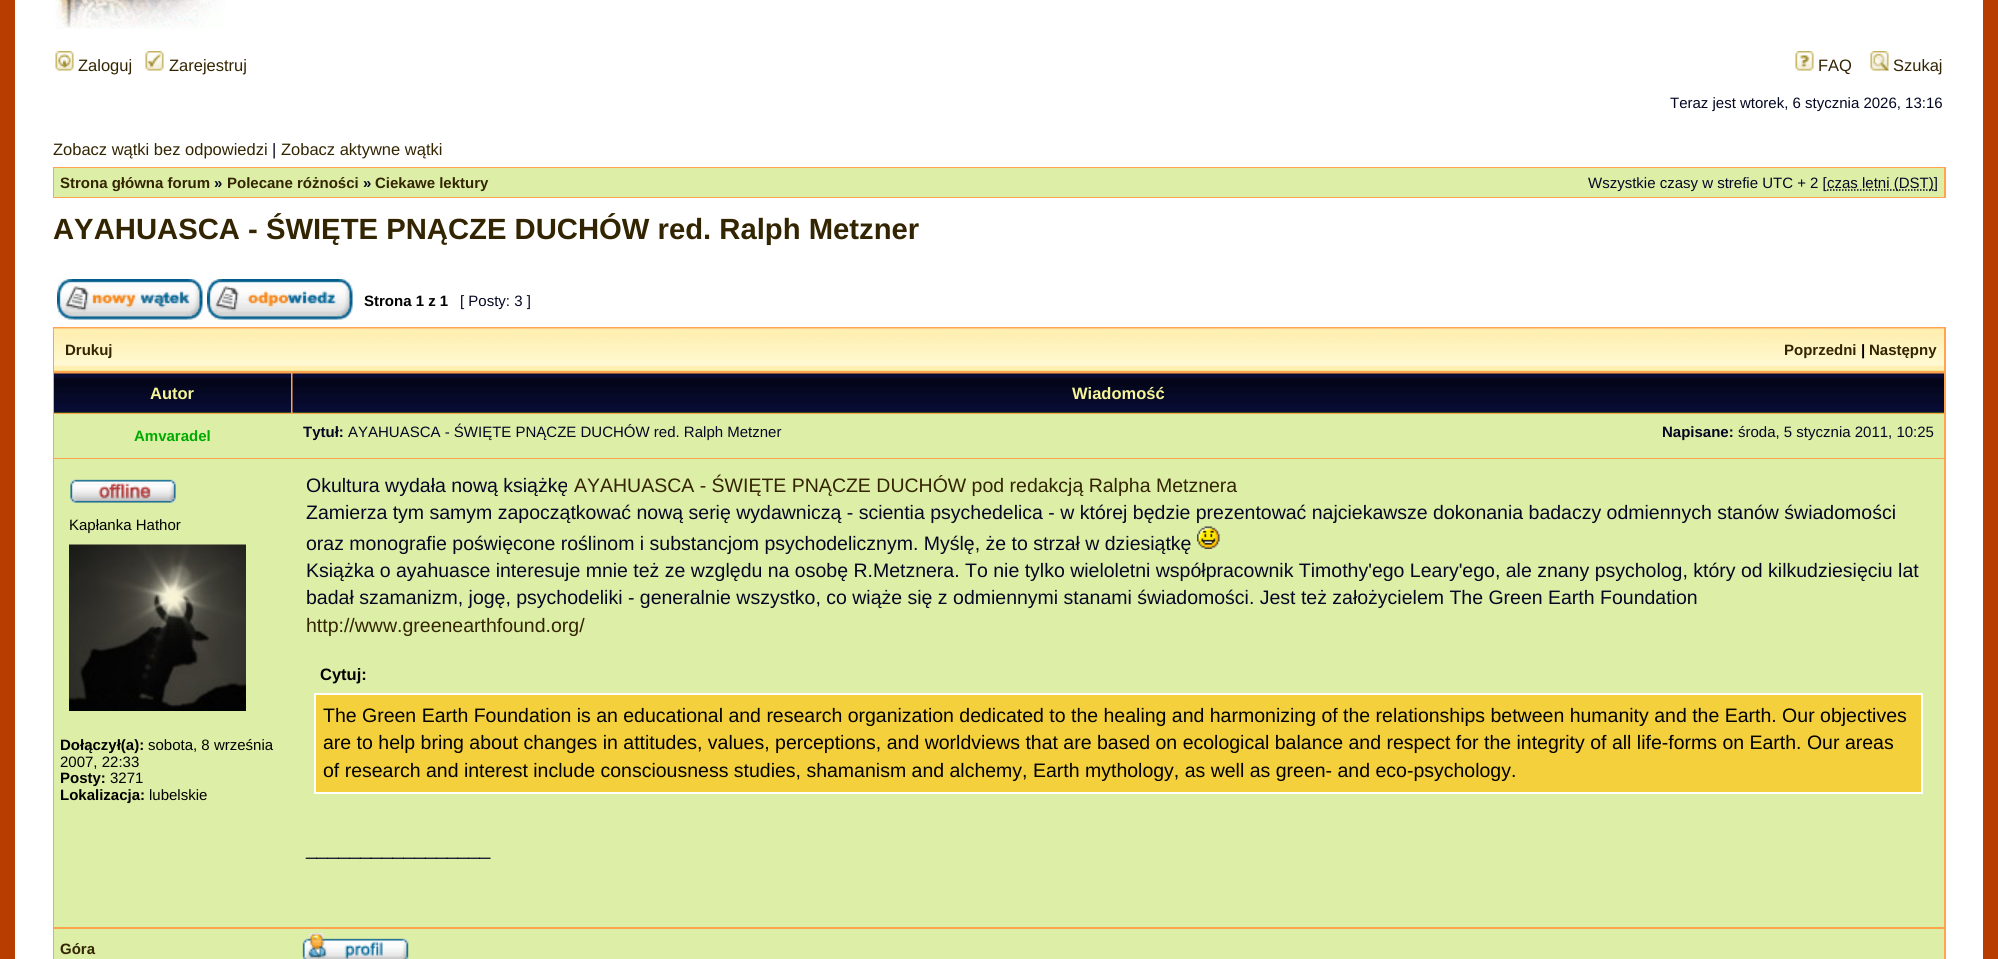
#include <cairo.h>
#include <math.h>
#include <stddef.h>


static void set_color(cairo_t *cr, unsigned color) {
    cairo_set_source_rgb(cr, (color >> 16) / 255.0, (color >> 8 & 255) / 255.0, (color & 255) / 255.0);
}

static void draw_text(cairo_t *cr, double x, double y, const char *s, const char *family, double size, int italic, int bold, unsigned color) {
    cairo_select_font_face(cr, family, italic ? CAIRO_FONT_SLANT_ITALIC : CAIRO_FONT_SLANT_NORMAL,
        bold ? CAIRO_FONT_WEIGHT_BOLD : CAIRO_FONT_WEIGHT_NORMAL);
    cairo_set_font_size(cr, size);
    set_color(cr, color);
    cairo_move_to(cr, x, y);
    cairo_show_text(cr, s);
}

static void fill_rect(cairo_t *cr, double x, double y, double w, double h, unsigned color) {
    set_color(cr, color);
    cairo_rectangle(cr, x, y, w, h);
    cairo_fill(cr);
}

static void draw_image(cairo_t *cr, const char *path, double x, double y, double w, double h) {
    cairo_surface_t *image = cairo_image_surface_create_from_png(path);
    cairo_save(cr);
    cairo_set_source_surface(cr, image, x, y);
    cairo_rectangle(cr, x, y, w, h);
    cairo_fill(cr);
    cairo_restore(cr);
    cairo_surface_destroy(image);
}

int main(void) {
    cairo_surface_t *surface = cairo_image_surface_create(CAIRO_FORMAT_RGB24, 1998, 959);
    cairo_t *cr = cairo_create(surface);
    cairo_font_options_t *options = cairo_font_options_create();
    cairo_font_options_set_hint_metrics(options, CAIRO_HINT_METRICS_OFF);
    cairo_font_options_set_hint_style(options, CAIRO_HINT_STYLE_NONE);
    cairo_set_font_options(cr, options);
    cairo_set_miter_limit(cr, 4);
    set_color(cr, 0xB83D00);
    cairo_paint(cr);
    fill_rect(cr, 15, 0, 1968, 959, 0xFFFFFF);
    draw_image(cr, "assets/img1.png", 55, 0, 170, 29);
    draw_image(cr, "assets/img2.png", 55, 51, 19, 20);
    draw_text(cr, 78, 71, "Zaloguj", "Liberation Sans", 16.5, 0, 0, 0x332501);
    draw_image(cr, "assets/img3.png", 145, 51, 19, 20);
    draw_text(cr, 169, 71, "Zarejestruj", "Liberation Sans", 16.5, 0, 0, 0x332501);
    draw_image(cr, "assets/img4.png", 1795, 51, 19, 20);
    draw_text(cr, 1818, 71, "FAQ", "Liberation Sans", 16.5, 0, 0, 0x332501);
    draw_image(cr, "assets/img5.png", 1870, 51, 19, 20);
    draw_text(cr, 1893, 71, "Szukaj", "Liberation Sans", 16.5, 0, 0, 0x332501);
    draw_text(cr, 1670, 108, "Teraz jest wtorek, 6 stycznia 2026, 13:16", "Liberation Sans", 15, 0, 0, 0x050623);
    draw_text(cr, 53, 155, "Zobacz wątki bez odpowiedzi", "Liberation Sans", 16.5, 0, 0, 0x332501);
    draw_text(cr, 272, 155, "|", "Liberation Sans", 16.5, 0, 0, 0x050623);
    draw_text(cr, 281, 155, "Zobacz aktywne wątki", "Liberation Sans", 16.5, 0, 0, 0x332501);
    fill_rect(cr, 53, 167, 1893, 31, 0xFFA34F);
    fill_rect(cr, 54, 168, 1890, 29, 0xDDEEA6);
    draw_text(cr, 60, 188, "Strona główna forum", "Liberation Sans", 15, 0, 1, 0x332501);
    draw_text(cr, 214, 188, "»", "Liberation Sans", 15, 0, 1, 0x050623);
    draw_text(cr, 227, 188, "Polecane różności", "Liberation Sans", 15, 0, 1, 0x332501);
    draw_text(cr, 363, 188, "»", "Liberation Sans", 15, 0, 1, 0x050623);
    draw_text(cr, 375, 188, "Ciekawe lektury", "Liberation Sans", 15, 0, 1, 0x332501);
    draw_text(cr, 1588, 188, "Wszystkie czasy w strefie UTC + 2 [", "Liberation Sans", 15, 0, 0, 0x050623);
    cairo_new_path(cr);
    cairo_move_to(cr, 1827, 190);
    cairo_line_to(cr, 1934, 190);
    cairo_set_line_width(cr, 1.5);
    cairo_set_dash(cr, (double[]){1.5, 1.5}, 2, 0);
    cairo_stroke(cr);
    draw_text(cr, 1827, 188, "czas letni (DST)]", "Liberation Sans", 15, 0, 0, 0x050623);
    draw_text(cr, 53, 239, "AYAHUASCA - ŚWIĘTE PNĄCZE DUCHÓW red. Ralph Metzner", "Liberation Sans", 29.25, 0, 1, 0x332501);
    draw_image(cr, "assets/img6.png", 57, 279, 146, 41);
    draw_image(cr, "assets/img7.png", 207, 279, 146, 41);
    draw_text(cr, 364, 306, "Strona 1 z 1", "Liberation Sans", 15, 0, 1, 0x000000);
    draw_text(cr, 460, 306, "[ Posty: 3 ]", "Liberation Sans", 15, 0, 0, 0x050623);
    fill_rect(cr, 53, 327, 1893, 632, 0xFFA34F);
    fill_rect(cr, 54, 370, 1890, 1, 0xDDDC74);
    draw_image(cr, "assets/img8.png", 54, 328, 1890, 43);
    draw_text(cr, 65, 355, "Drukuj", "Liberation Sans", 15, 0, 1, 0x332501);
    draw_text(cr, 1784, 355, "Poprzedni", "Liberation Sans", 15, 0, 1, 0x332501);
    draw_text(cr, 1861, 355, "|", "Liberation Sans", 15, 0, 1, 0x000000);
    draw_text(cr, 1869, 355, "Następny", "Liberation Sans", 15, 0, 1, 0x332501);
    fill_rect(cr, 54, 412, 237, 1, 0x5E8F0C);
    draw_image(cr, "assets/img9.png", 54, 373, 237, 40);
    draw_text(cr, 150, 399, "Autor", "Liberation Sans", 16.5, 0, 1, 0xF6F598);
    fill_rect(cr, 293, 412, 1651, 1, 0x5E8F0C);
    draw_image(cr, "assets/img10.png", 292, 373, 1652, 40);
    draw_text(cr, 1072, 399, "Wiadomość", "Liberation Sans", 16.5, 0, 1, 0xF6F598);
    fill_rect(cr, 54, 414, 1890, 44, 0xDDEEA6);
    draw_text(cr, 134, 441, "Amvaradel", "Liberation Sans", 15, 0, 1, 0x00AA00);
    draw_text(cr, 303, 437, "Tytuł:", "Liberation Sans", 15, 0, 1, 0x050623);
    draw_text(cr, 348, 437, "AYAHUASCA - ŚWIĘTE PNĄCZE DUCHÓW red. Ralph Metzner", "Liberation Sans", 15, 0, 0, 0x050623);
    draw_text(cr, 1662, 437, "Napisane:", "Liberation Sans", 15, 0, 1, 0x050623);
    draw_text(cr, 1738, 437, "środa, 5 stycznia 2011, 10:25", "Liberation Sans", 15, 0, 0, 0x050623);
    fill_rect(cr, 54, 459, 1890, 468, 0xDDEEA6);
    draw_image(cr, "assets/img11.png", 70, 479, 106, 24);
    draw_text(cr, 69, 530, "Kapłanka Hathor", "Liberation Sans", 15, 0, 0, 0x000000);
    draw_image(cr, "assets/img12.png", 69, 544, 177, 167);
    draw_text(cr, 60, 750, "Dołączył(a):", "Liberation Sans", 15, 0, 1, 0x000000);
    draw_text(cr, 148, 750, "sobota, 8 września", "Liberation Sans", 15, 0, 0, 0x000000);
    draw_text(cr, 60, 767, "2007, 22:33", "Liberation Sans", 15, 0, 0, 0x000000);
    draw_text(cr, 60, 783, "Posty:", "Liberation Sans", 15, 0, 1, 0x000000);
    draw_text(cr, 110, 783, "3271", "Liberation Sans", 15, 0, 0, 0x000000);
    draw_text(cr, 60, 800, "Lokalizacja:", "Liberation Sans", 15, 0, 1, 0x000000);
    draw_text(cr, 149, 800, "lubelskie", "Liberation Sans", 15, 0, 0, 0x000000);
    draw_text(cr, 306, 492, "Okultura wydała nową książkę", "Liberation Sans", 19.5, 0, 0, 0x050623);
    draw_text(cr, 574, 492, "AYAHUASCA - ŚWIĘTE PNĄCZE DUCHÓW pod redakcją Ralpha Metznera", "Liberation Sans", 19.5, 0, 0, 0x332501);
    draw_text(cr, 306, 519, "Zamierza tym samym zapoczątkować nową serię wydawniczą - scientia psychedelica - w której będzie prezentować najciekawsze dokonania badaczy odmiennych stanów świadomości", "Liberation Sans", 19.5, 0, 0, 0x050623);
    draw_text(cr, 306, 550, "oraz monografie poświęcone roślinom i substancjom psychodelicznym. Myślę, że to strzał w dziesiątkę", "Liberation Sans", 19.5, 0, 0, 0x050623);
    draw_image(cr, "assets/img13.png", 1197, 526, 23, 23);
    draw_text(cr, 306, 577, "Książka o ayahuasce interesuje mnie też ze względu na osobę R.Metznera. To nie tylko wieloletni współpracownik Timothy'ego Leary'ego, ale znany psycholog, który od kilkudziesięciu lat", "Liberation Sans", 19.5, 0, 0, 0x050623);
    draw_text(cr, 306, 604, "badał szamanizm, jogę, psychodeliki - generalnie wszystko, co wiąże się z odmiennymi stanami świadomości. Jest też założycielem The Green Earth Foundation", "Liberation Sans", 19.5, 0, 0, 0x050623);
    draw_text(cr, 306, 632, "http://www.greenearthfound.org/", "Liberation Sans", 19.5, 0, 0, 0x332501);
    draw_text(cr, 320, 680, "Cytuj:", "Liberation Sans", 16.5, 0, 1, 0x000000);
    set_color(cr, 0xF4D03D);
    cairo_rectangle(cr, 315, 694, 1607, 99);
    cairo_fill_preserve(cr);
    set_color(cr, 0xFFFFFF);
    cairo_set_line_width(cr, 2);
    cairo_set_dash(cr, NULL, 0, 0);
    cairo_stroke(cr);
    draw_text(cr, 323, 722, "The Green Earth Foundation is an educational and research organization dedicated to the healing and harmonizing of the relationships between humanity and the Earth. Our objectives", "Liberation Sans", 19.5, 0, 0, 0x000000);
    draw_text(cr, 323, 749, "are to help bring about changes in attitudes, values, perceptions, and worldviews that are based on ecological balance and respect for the integrity of all life-forms on Earth. Our areas", "Liberation Sans", 19.5, 0, 0, 0x000000);
    draw_text(cr, 323, 777, "of research and interest include consciousness studies, shamanism and alchemy, Earth mythology, as well as green- and eco-psychology.", "Liberation Sans", 19.5, 0, 0, 0x000000);
    draw_text(cr, 306, 855, "_________________", "Liberation Sans", 19.5, 0, 0, 0x050623);
    fill_rect(cr, 54, 929, 1890, 30, 0xDDEEA6);
    draw_text(cr, 60, 954, "Góra", "Liberation Sans", 15, 0, 1, 0x332501);
    draw_image(cr, "assets/img14.png", 302, 933, 107, 26);
    cairo_surface_write_to_png(surface, "output.png");
    cairo_font_options_destroy(options);
    cairo_destroy(cr);
    cairo_surface_destroy(surface);
    return 0;
}
